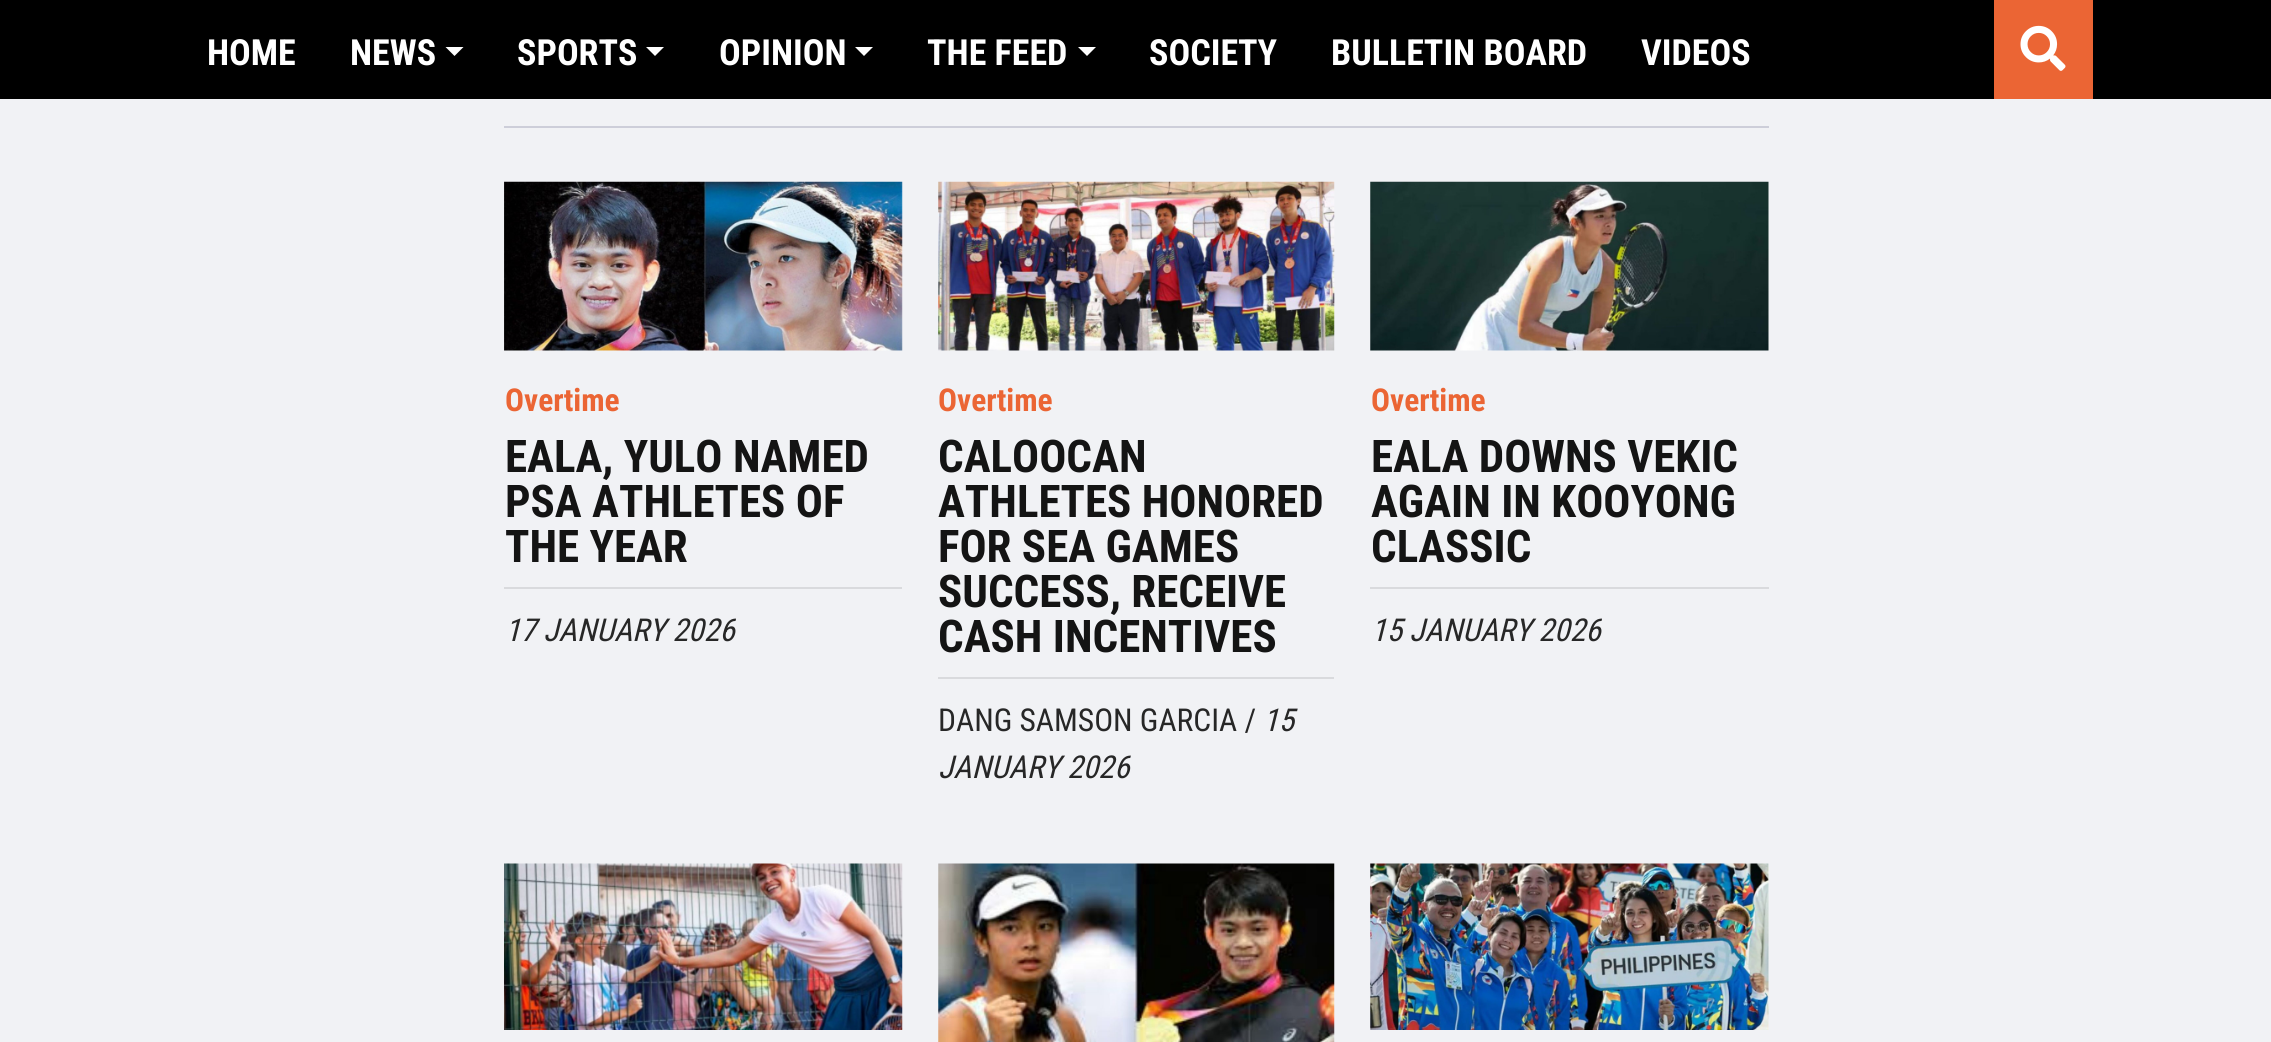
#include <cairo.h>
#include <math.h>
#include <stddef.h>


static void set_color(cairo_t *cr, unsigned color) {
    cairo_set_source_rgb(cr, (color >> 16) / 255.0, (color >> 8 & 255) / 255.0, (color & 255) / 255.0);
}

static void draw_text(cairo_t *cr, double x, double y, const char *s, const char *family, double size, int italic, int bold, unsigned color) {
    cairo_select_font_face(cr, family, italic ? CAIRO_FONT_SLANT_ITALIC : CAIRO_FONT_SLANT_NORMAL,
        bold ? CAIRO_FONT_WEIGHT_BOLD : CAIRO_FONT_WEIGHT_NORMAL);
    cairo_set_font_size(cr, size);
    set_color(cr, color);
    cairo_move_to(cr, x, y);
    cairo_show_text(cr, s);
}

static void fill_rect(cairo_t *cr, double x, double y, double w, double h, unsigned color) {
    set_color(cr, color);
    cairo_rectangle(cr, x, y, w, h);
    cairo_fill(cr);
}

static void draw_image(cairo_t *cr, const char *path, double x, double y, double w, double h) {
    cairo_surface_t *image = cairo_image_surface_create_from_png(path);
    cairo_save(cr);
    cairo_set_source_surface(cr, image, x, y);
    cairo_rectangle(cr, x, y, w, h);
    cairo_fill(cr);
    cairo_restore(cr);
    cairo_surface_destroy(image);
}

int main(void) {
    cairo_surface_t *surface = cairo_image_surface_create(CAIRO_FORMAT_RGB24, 2271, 1042);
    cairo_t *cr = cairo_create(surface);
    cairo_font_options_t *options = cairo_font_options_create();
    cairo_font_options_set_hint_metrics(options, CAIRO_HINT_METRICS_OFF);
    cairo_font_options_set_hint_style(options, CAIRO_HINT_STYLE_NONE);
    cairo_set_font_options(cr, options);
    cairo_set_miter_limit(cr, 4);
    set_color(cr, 0xF1F2F5);
    cairo_paint(cr);
    fill_rect(cr, 0, 0, 2271, 99, 0x000000);
    draw_text(cr, 207, 65, "HOME", "Roboto Condensed", 36, 0, 1, 0xFFFFFF);
    draw_text(cr, 350, 65, "NEWS", "Roboto Condensed", 36, 0, 1, 0xFFFFFF);
    cairo_new_path(cr);
    cairo_move_to(cr, 445.5, 47);
    cairo_line_to(cr, 463.5, 47);
    cairo_line_to(cr, 454.5, 56);
    cairo_close_path(cr);
    cairo_fill(cr);
    draw_text(cr, 517, 65, "SPORTS", "Roboto Condensed", 36, 0, 1, 0xFFFFFF);
    cairo_new_path(cr);
    cairo_move_to(cr, 646, 47);
    cairo_line_to(cr, 664, 47);
    cairo_line_to(cr, 655, 56);
    cairo_close_path(cr);
    cairo_fill(cr);
    draw_text(cr, 719, 65, "OPINION", "Roboto Condensed", 36, 0, 1, 0xFFFFFF);
    cairo_new_path(cr);
    cairo_move_to(cr, 855, 47);
    cairo_line_to(cr, 873, 47);
    cairo_line_to(cr, 864, 56);
    cairo_close_path(cr);
    cairo_fill(cr);
    draw_text(cr, 927, 65, "THE FEED", "Roboto Condensed", 36, 0, 1, 0xFFFFFF);
    cairo_new_path(cr);
    cairo_move_to(cr, 1078, 47);
    cairo_line_to(cr, 1096, 47);
    cairo_line_to(cr, 1087, 56);
    cairo_close_path(cr);
    cairo_fill(cr);
    draw_text(cr, 1149, 65, "SOCIETY", "Roboto Condensed", 36, 0, 1, 0xFFFFFF);
    draw_text(cr, 1331, 65, "BULLETIN BOARD", "Roboto Condensed", 36, 0, 1, 0xFFFFFF);
    draw_text(cr, 1641, 65, "VIDEOS", "Roboto Condensed", 36, 0, 1, 0xFFFFFF);
    fill_rect(cr, 1994, 0, 99, 99, 0xEB6534);
    draw_image(cr, "assets/img1.png", 2020, 25, 46, 46);
    fill_rect(cr, 504, 126, 1265, 2, 0xCDCED9);
    draw_image(cr, "assets/img2.png", 504, 181, 399, 170);
    draw_text(cr, 505, 411, "Overtime", "Roboto Condensed", 31.5, 0, 1, 0xEB6534);
    draw_text(cr, 505, 472, "EALA, YULO NAMED", "Roboto Condensed", 45, 0, 1, 0x141414);
    draw_text(cr, 505, 517, "PSA ATHLETES OF", "Roboto Condensed", 45, 0, 1, 0x141414);
    draw_text(cr, 505, 562, "THE YEAR", "Roboto Condensed", 45, 0, 1, 0x141414);
    fill_rect(cr, 504, 587, 398, 2, 0xD9DADD);
    draw_text(cr, 505, 641, "17 JANUARY 2026", "Roboto Condensed", 31.5, 1, 0, 0x272727);
    draw_image(cr, "assets/img3.png", 938, 181, 397, 170);
    draw_text(cr, 938, 411, "Overtime", "Roboto Condensed", 31.5, 0, 1, 0xEB6534);
    draw_text(cr, 938, 472, "CALOOCAN", "Roboto Condensed", 45, 0, 1, 0x141414);
    draw_text(cr, 938, 517, "ATHLETES HONORED", "Roboto Condensed", 45, 0, 1, 0x141414);
    draw_text(cr, 938, 562, "FOR SEA GAMES", "Roboto Condensed", 45, 0, 1, 0x141414);
    draw_text(cr, 938, 607, "SUCCESS, RECEIVE", "Roboto Condensed", 45, 0, 1, 0x141414);
    draw_text(cr, 938, 652, "CASH INCENTIVES", "Roboto Condensed", 45, 0, 1, 0x141414);
    fill_rect(cr, 938, 677, 396, 2, 0xD9DADD);
    draw_text(cr, 938, 731, "DANG SAMSON GARCIA /", "Roboto Condensed", 31.5, 0, 0, 0x272727);
    draw_text(cr, 1263, 731, "15", "Roboto Condensed", 31.5, 1, 0, 0x272727);
    draw_text(cr, 938, 778, "JANUARY 2026", "Roboto Condensed", 31.5, 1, 0, 0x272727);
    draw_image(cr, "assets/img4.png", 1370, 181, 399, 170);
    draw_text(cr, 1371, 411, "Overtime", "Roboto Condensed", 31.5, 0, 1, 0xEB6534);
    draw_text(cr, 1371, 472, "EALA DOWNS VEKIC", "Roboto Condensed", 45, 0, 1, 0x141414);
    draw_text(cr, 1371, 517, "AGAIN IN KOOYONG", "Roboto Condensed", 45, 0, 1, 0x141414);
    draw_text(cr, 1371, 562, "CLASSIC", "Roboto Condensed", 45, 0, 1, 0x141414);
    fill_rect(cr, 1370, 587, 399, 2, 0xD9DADD);
    draw_text(cr, 1371, 641, "15 JANUARY 2026", "Roboto Condensed", 31.5, 1, 0, 0x272727);
    draw_image(cr, "assets/img5.png", 504, 863, 399, 167);
    draw_image(cr, "assets/img6.png", 938, 863, 397, 179);
    draw_image(cr, "assets/img7.png", 1370, 863, 399, 167);
    cairo_surface_write_to_png(surface, "output.png");
    cairo_font_options_destroy(options);
    cairo_destroy(cr);
    cairo_surface_destroy(surface);
    return 0;
}
